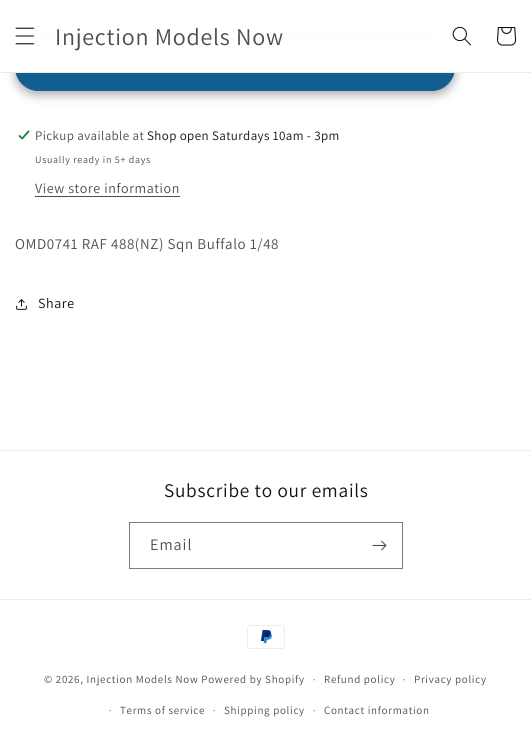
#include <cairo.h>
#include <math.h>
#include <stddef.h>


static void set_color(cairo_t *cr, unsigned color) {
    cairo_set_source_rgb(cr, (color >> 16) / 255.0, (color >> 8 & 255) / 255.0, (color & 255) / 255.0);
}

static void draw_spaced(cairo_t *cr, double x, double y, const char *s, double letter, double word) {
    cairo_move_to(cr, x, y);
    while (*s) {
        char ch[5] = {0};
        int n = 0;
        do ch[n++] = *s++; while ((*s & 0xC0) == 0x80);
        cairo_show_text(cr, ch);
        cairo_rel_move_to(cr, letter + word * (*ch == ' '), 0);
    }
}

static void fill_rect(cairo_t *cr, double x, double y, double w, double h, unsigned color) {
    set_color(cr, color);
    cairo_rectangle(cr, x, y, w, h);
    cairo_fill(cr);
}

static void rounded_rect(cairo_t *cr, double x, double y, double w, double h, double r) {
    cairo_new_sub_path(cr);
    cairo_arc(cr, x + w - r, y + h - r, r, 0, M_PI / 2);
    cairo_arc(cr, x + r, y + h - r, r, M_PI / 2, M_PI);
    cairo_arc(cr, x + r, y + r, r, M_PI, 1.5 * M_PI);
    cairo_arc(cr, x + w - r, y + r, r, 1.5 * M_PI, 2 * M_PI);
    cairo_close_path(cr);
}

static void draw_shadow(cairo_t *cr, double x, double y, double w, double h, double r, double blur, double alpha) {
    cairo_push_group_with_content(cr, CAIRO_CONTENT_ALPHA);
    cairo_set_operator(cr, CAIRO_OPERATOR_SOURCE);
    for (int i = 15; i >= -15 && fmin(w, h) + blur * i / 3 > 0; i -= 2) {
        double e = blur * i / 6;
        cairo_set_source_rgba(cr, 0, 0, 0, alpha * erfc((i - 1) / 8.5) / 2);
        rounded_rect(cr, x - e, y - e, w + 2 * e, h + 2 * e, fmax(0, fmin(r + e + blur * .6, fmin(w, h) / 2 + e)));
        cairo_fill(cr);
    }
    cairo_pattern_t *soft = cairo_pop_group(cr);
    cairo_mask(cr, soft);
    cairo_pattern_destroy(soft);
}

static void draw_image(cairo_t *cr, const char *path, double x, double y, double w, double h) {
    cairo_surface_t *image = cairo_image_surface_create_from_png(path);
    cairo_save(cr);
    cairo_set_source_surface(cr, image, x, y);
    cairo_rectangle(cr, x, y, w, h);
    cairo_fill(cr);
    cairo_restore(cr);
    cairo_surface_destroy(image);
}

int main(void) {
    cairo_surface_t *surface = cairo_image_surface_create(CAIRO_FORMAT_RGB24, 531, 752);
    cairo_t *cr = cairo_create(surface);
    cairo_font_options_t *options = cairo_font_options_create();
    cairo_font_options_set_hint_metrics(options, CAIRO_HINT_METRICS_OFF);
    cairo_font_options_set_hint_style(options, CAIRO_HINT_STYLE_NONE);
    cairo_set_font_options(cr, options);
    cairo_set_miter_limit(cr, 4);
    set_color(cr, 0xFFFFFF);
    cairo_paint(cr);
    set_color(cr, 0x121212);
    draw_shadow(cr, 15, 48, 440, 47, 23.5, 5, 0.35);
    set_color(cr, 0x135E91);
    rounded_rect(cr, 15.5, 44.5, 439, 46, 23);
    cairo_fill_preserve(cr);
    cairo_set_line_width(cr, 1);
    cairo_stroke(cr);
    fill_rect(cr, 6, 39, 458, 33, 0xFFFFFF);
    fill_rect(cr, 0, 72, 531, 1, 0xECECEC);
    draw_image(cr, "assets/img1.png", 15, 27, 20, 18);
    cairo_select_font_face(cr, "Assistant", CAIRO_FONT_SLANT_NORMAL, CAIRO_FONT_WEIGHT_NORMAL);
    cairo_set_font_size(cr, 24);
    set_color(cr, 0x4D4D4D);
    draw_spaced(cr, 55, 45, "Injection Models Now", 0.75, 0);
    draw_image(cr, "assets/img2.png", 452, 26, 19, 20);
    draw_image(cr, "assets/img3.png", 497, 27, 20, 19);
    draw_image(cr, "assets/img4.png", 18, 130, 12, 10);
    cairo_set_font_size(cr, 13);
    draw_spaced(cr, 35, 140, "Pickup available at", 0.4, 0);
    set_color(cr, 0x121212);
    draw_spaced(cr, 147, 140, "Shop open Saturdays 10am - 3pm", 0.4, 0);
    cairo_set_font_size(cr, 10);
    set_color(cr, 0x4D4D4D);
    draw_spaced(cr, 35, 163, "Usually ready in 5+ days", 0.7, 0);
    cairo_set_font_size(cr, 14);
    draw_spaced(cr, 35, 193, "View store information", 0.6, 0);
    fill_rect(cr, 35, 196, 145, 1, 0x4D4D4D);
    cairo_set_font_size(cr, 15);
    draw_spaced(cr, 15, 249, "OMD0741 RAF 488(NZ) Sqn Buffalo 1/48", 0.6, 0);
    draw_image(cr, "assets/img5.png", 16, 299, 11, 11);
    cairo_set_font_size(cr, 14);
    set_color(cr, 0x121212);
    draw_spaced(cr, 38, 308, "Share", 0.6, 0);
    fill_rect(cr, 0, 450, 531, 1, 0xECECEC);
    cairo_set_font_size(cr, 19.25);
    set_color(cr, 0x121212);
    draw_spaced(cr, 164, 497, "Subscribe to our emails", 0.75, 0);
    cairo_rectangle(cr, 129.5, 522.5, 273, 46);
    set_color(cr, 0x7D7D7D);
    cairo_stroke(cr);
    cairo_set_font_size(cr, 16);
    set_color(cr, 0x4D4D4D);
    draw_spaced(cr, 150, 550, "Email", 1, 0);
    draw_image(cr, "assets/img6.png", 372, 540, 15, 11);
    fill_rect(cr, 0, 599, 531, 1, 0xECECEC);
    draw_image(cr, "assets/img7.png", 247, 625, 38, 24);
    cairo_set_font_size(cr, 11);
    set_color(cr, 0x4D4D4D);
    draw_spaced(cr, 44, 683, "© 2026, Injection Models Now Powered by Shopify", 0.7, 0);
    cairo_set_font_size(cr, 10);
    draw_spaced(cr, 313, 683, "·", 0.7, 0);
    cairo_set_font_size(cr, 11);
    draw_spaced(cr, 324, 683, "Refund policy", 0.7, 0);
    cairo_set_font_size(cr, 10);
    draw_spaced(cr, 403, 683, "·", 0.7, 0);
    cairo_set_font_size(cr, 11);
    draw_spaced(cr, 414, 683, "Privacy policy", 0.7, 0);
    cairo_set_font_size(cr, 10);
    draw_spaced(cr, 109, 714, "·", 0.7, 0);
    cairo_set_font_size(cr, 11);
    draw_spaced(cr, 120, 714, "Terms of service", 0.7, 0);
    cairo_set_font_size(cr, 10);
    draw_spaced(cr, 213, 714, "·", 0.7, 0);
    cairo_set_font_size(cr, 11);
    draw_spaced(cr, 224, 714, "Shipping policy", 0.7, 0);
    cairo_set_font_size(cr, 10);
    draw_spaced(cr, 313, 714, "·", 0.7, 0);
    cairo_set_font_size(cr, 11);
    draw_spaced(cr, 324, 714, "Contact information", 0.7, 0);
    cairo_surface_write_to_png(surface, "output.png");
    cairo_font_options_destroy(options);
    cairo_destroy(cr);
    cairo_surface_destroy(surface);
    return 0;
}
